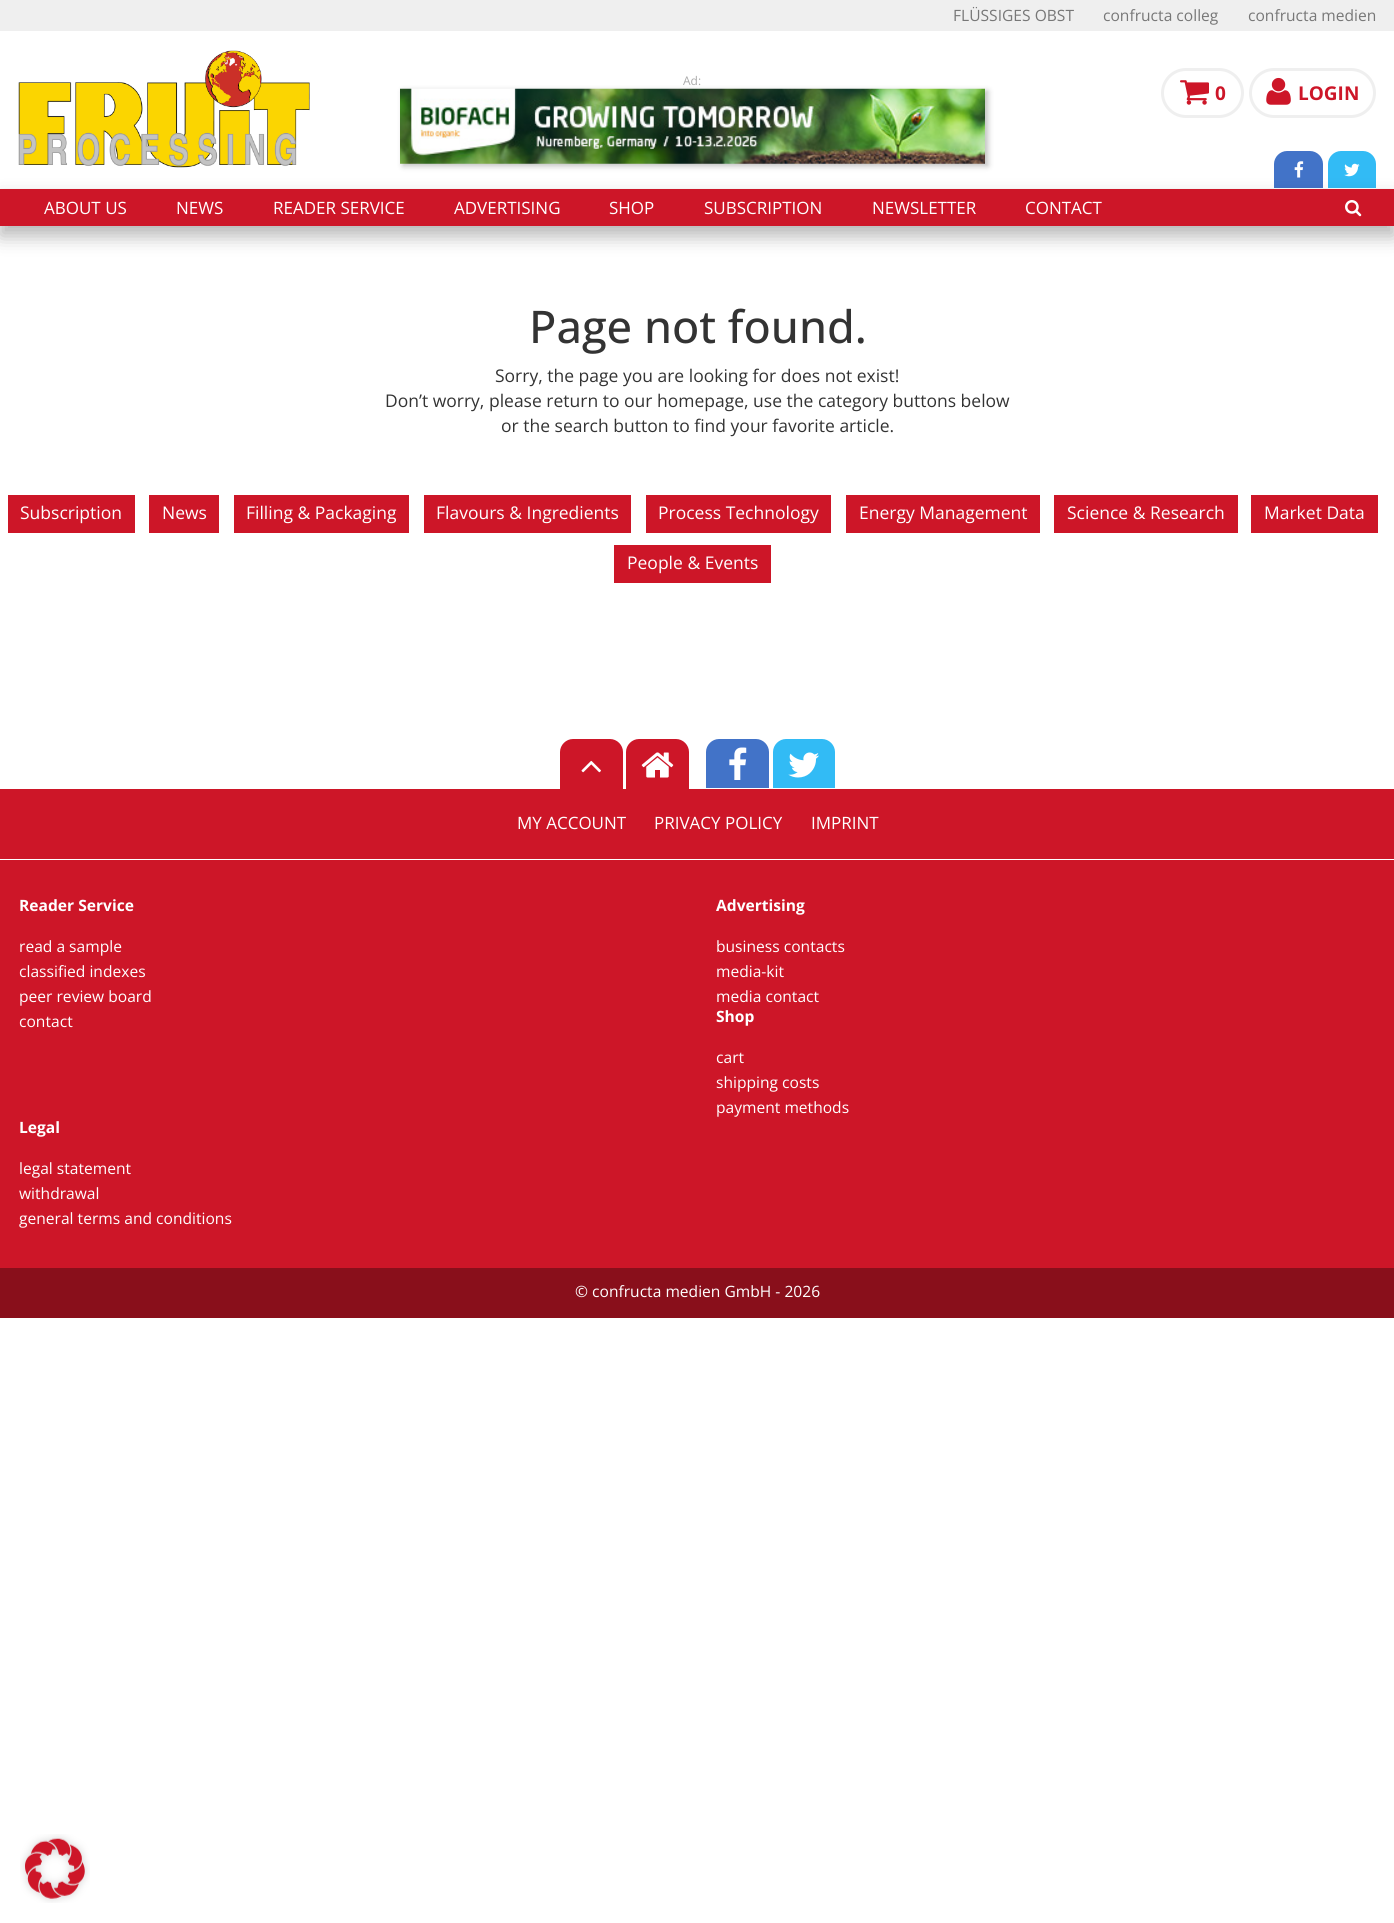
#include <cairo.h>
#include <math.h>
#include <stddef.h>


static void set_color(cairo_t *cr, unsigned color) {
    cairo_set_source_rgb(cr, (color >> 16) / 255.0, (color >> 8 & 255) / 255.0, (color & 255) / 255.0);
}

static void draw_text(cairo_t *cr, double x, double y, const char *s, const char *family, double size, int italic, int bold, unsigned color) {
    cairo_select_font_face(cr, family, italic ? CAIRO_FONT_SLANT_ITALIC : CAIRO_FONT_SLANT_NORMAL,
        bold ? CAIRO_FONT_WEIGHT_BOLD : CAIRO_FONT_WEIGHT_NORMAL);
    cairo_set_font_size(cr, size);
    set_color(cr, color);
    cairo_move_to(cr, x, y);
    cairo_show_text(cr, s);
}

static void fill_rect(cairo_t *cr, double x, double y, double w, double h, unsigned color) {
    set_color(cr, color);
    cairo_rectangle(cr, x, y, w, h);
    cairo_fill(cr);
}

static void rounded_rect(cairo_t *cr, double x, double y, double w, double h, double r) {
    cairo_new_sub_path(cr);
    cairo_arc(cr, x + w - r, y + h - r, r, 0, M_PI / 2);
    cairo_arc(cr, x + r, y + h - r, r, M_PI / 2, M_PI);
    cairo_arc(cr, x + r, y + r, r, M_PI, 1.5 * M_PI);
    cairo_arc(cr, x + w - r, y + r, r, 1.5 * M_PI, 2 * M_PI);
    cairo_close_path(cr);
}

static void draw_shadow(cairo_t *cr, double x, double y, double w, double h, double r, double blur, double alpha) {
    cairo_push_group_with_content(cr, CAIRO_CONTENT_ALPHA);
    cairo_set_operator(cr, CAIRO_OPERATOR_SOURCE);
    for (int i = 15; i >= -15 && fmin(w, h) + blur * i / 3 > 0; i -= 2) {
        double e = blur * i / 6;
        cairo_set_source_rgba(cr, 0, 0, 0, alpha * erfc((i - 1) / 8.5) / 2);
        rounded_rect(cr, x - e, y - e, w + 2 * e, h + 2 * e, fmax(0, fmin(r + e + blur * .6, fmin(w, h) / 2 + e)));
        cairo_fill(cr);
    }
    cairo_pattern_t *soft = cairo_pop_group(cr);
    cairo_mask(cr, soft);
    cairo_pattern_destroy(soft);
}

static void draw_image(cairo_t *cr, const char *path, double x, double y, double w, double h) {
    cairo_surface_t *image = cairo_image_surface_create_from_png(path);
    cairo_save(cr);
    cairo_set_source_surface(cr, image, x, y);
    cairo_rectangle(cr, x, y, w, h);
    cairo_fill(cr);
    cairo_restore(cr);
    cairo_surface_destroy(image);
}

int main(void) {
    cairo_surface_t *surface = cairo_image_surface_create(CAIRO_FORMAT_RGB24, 1394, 1923);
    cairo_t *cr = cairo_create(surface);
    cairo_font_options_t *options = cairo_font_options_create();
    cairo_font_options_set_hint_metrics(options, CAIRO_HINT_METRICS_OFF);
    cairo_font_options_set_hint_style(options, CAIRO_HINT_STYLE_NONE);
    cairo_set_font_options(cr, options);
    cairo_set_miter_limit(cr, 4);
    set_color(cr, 0xFFFFFF);
    cairo_paint(cr);
    fill_rect(cr, 0, 0, 1394, 31, 0xEFEFEF);
    draw_text(cr, 953, 21, "FLÜSSIGES OBST", "Open Sans", 15.6, 0, 0, 0x777777);
    draw_text(cr, 1103, 21, "confructa colleg", "Open Sans", 15.6, 0, 0, 0x777777);
    draw_text(cr, 1248, 21, "confructa medien", "Open Sans", 15.6, 0, 0, 0x777777);
    draw_image(cr, "assets/img1.png", 18, 50, 292, 118);
    draw_text(cr, 683, 85, "Ad:", "Open Sans", 12, 0, 0, 0xAAAAAA);
    set_color(cr, 0x000000);
    draw_shadow(cr, 403, 91, 585, 75, 0, 3, 0.25);
    draw_image(cr, "assets/img2.png", 400, 88, 585, 76);
    rounded_rect(cr, 1162.5, 69.5, 80, 47, 23.5);
    set_color(cr, 0xEFEFEF);
    cairo_set_line_width(cr, 3);
    cairo_stroke(cr);
    draw_image(cr, "assets/img3.png", 1180, 80, 29, 25);
    draw_text(cr, 1215, 100, "0", "Open Sans", 19, 0, 1, 0xCD1628);
    rounded_rect(cr, 1250.5, 69.5, 124, 47, 23.5);
    set_color(cr, 0xEFEFEF);
    cairo_stroke(cr);
    draw_image(cr, "assets/img4.png", 1266, 77, 25, 28);
    draw_text(cr, 1298, 100, "LOGIN", "Open Sans", 19, 0, 1, 0xCD1628);
    set_color(cr, 0x4273C8);
    cairo_new_path(cr);
    cairo_move_to(cr, 1287, 151);
    cairo_line_to(cr, 1310, 151);
    cairo_curve_to(cr, 1317, 151, 1323, 157, 1323, 164);
    cairo_line_to(cr, 1323, 189);
    cairo_line_to(cr, 1274, 189);
    cairo_line_to(cr, 1274, 164);
    cairo_curve_to(cr, 1274, 157, 1280, 151, 1287, 151);
    cairo_close_path(cr);
    cairo_fill(cr);
    fill_rect(cr, 1274, 188, 49, 1, 0xFFFFFF);
    draw_image(cr, "assets/img5.png", 1294, 161, 10, 17);
    set_color(cr, 0x32BBF5);
    cairo_new_path(cr);
    cairo_move_to(cr, 1341, 151);
    cairo_line_to(cr, 1363, 151);
    cairo_curve_to(cr, 1370, 151, 1376, 157, 1376, 164);
    cairo_line_to(cr, 1376, 189);
    cairo_line_to(cr, 1328, 189);
    cairo_line_to(cr, 1328, 164);
    cairo_curve_to(cr, 1328, 157, 1334, 151, 1341, 151);
    cairo_close_path(cr);
    cairo_fill(cr);
    fill_rect(cr, 1328, 188, 48, 1, 0xFFFFFF);
    draw_image(cr, "assets/img6.png", 1344, 163, 16, 14);
    set_color(cr, 0x000000);
    draw_shadow(cr, 0, 199, 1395, 37, 0, 9.5, 0.29);
    fill_rect(cr, 0, 189, 1394, 37, 0xCD1628);
    draw_text(cr, 44, 214, "ABOUT US", "Open Sans", 17, 0, 0, 0xFFFFFF);
    draw_text(cr, 176, 214, "NEWS", "Open Sans", 17, 0, 0, 0xFFFFFF);
    draw_text(cr, 273, 214, "READER SERVICE", "Open Sans", 17, 0, 0, 0xFFFFFF);
    draw_text(cr, 454, 214, "ADVERTISING", "Open Sans", 17, 0, 0, 0xFFFFFF);
    draw_text(cr, 609, 214, "SHOP", "Open Sans", 17, 0, 0, 0xFFFFFF);
    draw_text(cr, 704, 214, "SUBSCRIPTION", "Open Sans", 17, 0, 0, 0xFFFFFF);
    draw_text(cr, 872, 214, "NEWSLETTER", "Open Sans", 17, 0, 0, 0xFFFFFF);
    draw_text(cr, 1025, 214, "CONTACT", "Open Sans", 17, 0, 0, 0xFFFFFF);
    draw_image(cr, "assets/img7.png", 1345, 200, 17, 17);
    draw_text(cr, 529, 343, "Page not found.", "Open Sans Medium", 45, 0, 0, 0x333333);
    draw_text(cr, 495, 382, "Sorry, the page you are looking for does not exist!", "Open Sans", 17.5, 0, 0, 0x333333);
    draw_text(cr, 385, 407, "Don’t worry, please return to our homepage, use the category buttons below", "Open Sans", 17.5, 0, 0, 0x333333);
    draw_text(cr, 501, 432, "or the search button to find your favorite article.", "Open Sans", 17.5, 0, 0, 0x333333);
    fill_rect(cr, 8, 495, 127, 38, 0xCD1628);
    draw_text(cr, 20, 519, "Subscription", "Open Sans", 17.5, 0, 0, 0xFFFFFF);
    fill_rect(cr, 149, 495, 70, 38, 0xCD1628);
    draw_text(cr, 162, 519, "News", "Open Sans", 17.5, 0, 0, 0xFFFFFF);
    fill_rect(cr, 234, 495, 175, 38, 0xCD1628);
    draw_text(cr, 246, 519, "Filling & Packaging", "Open Sans", 17.5, 0, 0, 0xFFFFFF);
    fill_rect(cr, 424, 495, 207, 38, 0xCD1628);
    draw_text(cr, 436, 519, "Flavours & Ingredients", "Open Sans", 17.5, 0, 0, 0xFFFFFF);
    fill_rect(cr, 646, 495, 185, 38, 0xCD1628);
    draw_text(cr, 658, 519, "Process Technology", "Open Sans", 17.5, 0, 0, 0xFFFFFF);
    fill_rect(cr, 846, 495, 194, 38, 0xCD1628);
    draw_text(cr, 859, 519, "Energy Management", "Open Sans", 17.5, 0, 0, 0xFFFFFF);
    fill_rect(cr, 1054, 495, 184, 38, 0xCD1628);
    draw_text(cr, 1067, 519, "Science & Research", "Open Sans", 17.5, 0, 0, 0xFFFFFF);
    fill_rect(cr, 1251, 495, 127, 38, 0xCD1628);
    draw_text(cr, 1264, 519, "Market Data", "Open Sans", 17.5, 0, 0, 0xFFFFFF);
    fill_rect(cr, 614, 545, 157, 38, 0xCD1628);
    draw_text(cr, 627, 569, "People & Events", "Open Sans", 17.5, 0, 0, 0xFFFFFF);
    set_color(cr, 0xCD1628);
    cairo_new_path(cr);
    cairo_move_to(cr, 573, 739);
    cairo_line_to(cr, 610, 739);
    cairo_curve_to(cr, 617, 739, 623, 745, 623, 752);
    cairo_line_to(cr, 623, 789);
    cairo_line_to(cr, 560, 789);
    cairo_line_to(cr, 560, 752);
    cairo_curve_to(cr, 560, 745, 566, 739, 573, 739);
    cairo_close_path(cr);
    cairo_fill(cr);
    draw_image(cr, "assets/img8.png", 581, 760, 20, 13);
    cairo_new_path(cr);
    cairo_move_to(cr, 639, 739);
    cairo_line_to(cr, 676, 739);
    cairo_curve_to(cr, 683, 739, 689, 745, 689, 752);
    cairo_line_to(cr, 689, 789);
    cairo_line_to(cr, 626, 789);
    cairo_line_to(cr, 626, 752);
    cairo_curve_to(cr, 626, 745, 632, 739, 639, 739);
    cairo_close_path(cr);
    cairo_fill(cr);
    draw_image(cr, "assets/img9.png", 641, 752, 33, 26);
    set_color(cr, 0x4273C8);
    cairo_new_path(cr);
    cairo_move_to(cr, 719, 739);
    cairo_line_to(cr, 756, 739);
    cairo_curve_to(cr, 763, 739, 769, 745, 769, 752);
    cairo_line_to(cr, 769, 789);
    cairo_line_to(cr, 706, 789);
    cairo_line_to(cr, 706, 752);
    cairo_curve_to(cr, 706, 745, 712, 739, 719, 739);
    cairo_close_path(cr);
    cairo_fill(cr);
    fill_rect(cr, 706, 788, 63, 1, 0xFFFFFF);
    draw_image(cr, "assets/img10.png", 729, 747, 18, 33);
    set_color(cr, 0x32BBF5);
    cairo_new_path(cr);
    cairo_move_to(cr, 786, 739);
    cairo_line_to(cr, 822, 739);
    cairo_curve_to(cr, 829, 739, 835, 745, 835, 752);
    cairo_line_to(cr, 835, 789);
    cairo_line_to(cr, 773, 789);
    cairo_line_to(cr, 773, 752);
    cairo_curve_to(cr, 773, 745, 779, 739, 786, 739);
    cairo_close_path(cr);
    cairo_fill(cr);
    fill_rect(cr, 773, 788, 62, 1, 0xFFFFFF);
    draw_image(cr, "assets/img11.png", 788, 752, 31, 26);
    fill_rect(cr, 0, 789, 1394, 479, 0xCD1628);
    draw_text(cr, 517, 829, "MY ACCOUNT", "Open Sans", 17, 0, 0, 0xFFFFFF);
    draw_text(cr, 654, 829, "PRIVACY POLICY", "Open Sans", 17, 0, 0, 0xFFFFFF);
    draw_text(cr, 811, 829, "IMPRINT", "Open Sans", 17, 0, 0, 0xFFFFFF);
    fill_rect(cr, 0, 859, 1394, 1, 0xFFFFFF);
    draw_text(cr, 19, 911, "Reader Service", "Open Sans", 15.6, 0, 1, 0xFFFFFF);
    draw_text(cr, 19, 952, "read a sample", "Open Sans", 15.6, 0, 0, 0xFFFFFF);
    draw_text(cr, 19, 977, "classified indexes", "Open Sans", 15.6, 0, 0, 0xFFFFFF);
    draw_text(cr, 19, 1002, "peer review board", "Open Sans", 15.6, 0, 0, 0xFFFFFF);
    draw_text(cr, 19, 1027, "contact", "Open Sans", 15.6, 0, 0, 0xFFFFFF);
    draw_text(cr, 716, 911, "Advertising", "Open Sans", 15.6, 0, 1, 0xFFFFFF);
    draw_text(cr, 716, 952, "business contacts", "Open Sans", 15.6, 0, 0, 0xFFFFFF);
    draw_text(cr, 716, 977, "media-kit", "Open Sans", 15.6, 0, 0, 0xFFFFFF);
    draw_text(cr, 716, 1002, "media contact", "Open Sans", 15.6, 0, 0, 0xFFFFFF);
    draw_text(cr, 716, 1022, "Shop", "Open Sans", 15.6, 0, 1, 0xFFFFFF);
    draw_text(cr, 716, 1063, "cart", "Open Sans", 15.6, 0, 0, 0xFFFFFF);
    draw_text(cr, 716, 1088, "shipping costs", "Open Sans", 15.6, 0, 0, 0xFFFFFF);
    draw_text(cr, 716, 1113, "payment methods", "Open Sans", 15.6, 0, 0, 0xFFFFFF);
    draw_text(cr, 19, 1133, "Legal", "Open Sans", 15.6, 0, 1, 0xFFFFFF);
    draw_text(cr, 19, 1174, "legal statement", "Open Sans", 15.6, 0, 0, 0xFFFFFF);
    draw_text(cr, 19, 1199, "withdrawal", "Open Sans", 15.6, 0, 0, 0xFFFFFF);
    draw_text(cr, 19, 1224, "general terms and conditions", "Open Sans", 15.6, 0, 0, 0xFFFFFF);
    fill_rect(cr, 0, 1268, 1394, 50, 0x890F1B);
    draw_text(cr, 575, 1297, "© confructa medien GmbH - 2026", "Open Sans", 15.6, 0, 0, 0xFFFFFF);
    draw_image(cr, "assets/img12.png", 20, 1834, 70, 69);
    cairo_surface_write_to_png(surface, "output.png");
    cairo_font_options_destroy(options);
    cairo_destroy(cr);
    cairo_surface_destroy(surface);
    return 0;
}
